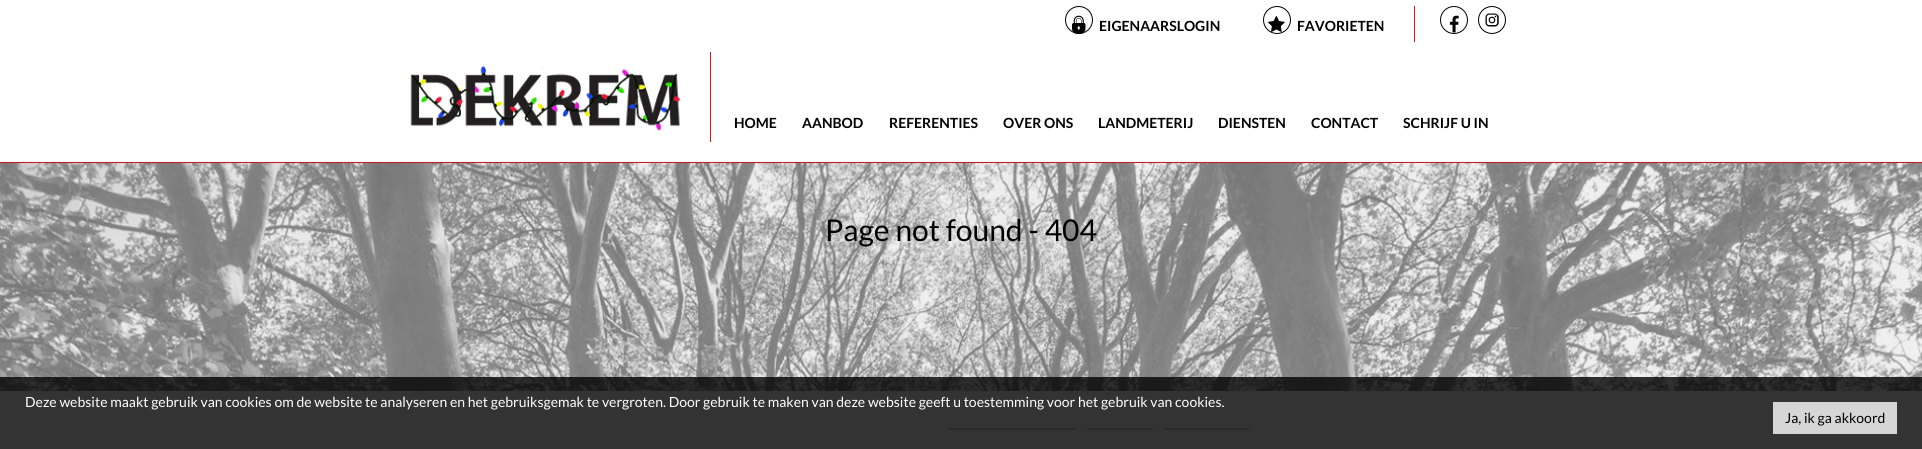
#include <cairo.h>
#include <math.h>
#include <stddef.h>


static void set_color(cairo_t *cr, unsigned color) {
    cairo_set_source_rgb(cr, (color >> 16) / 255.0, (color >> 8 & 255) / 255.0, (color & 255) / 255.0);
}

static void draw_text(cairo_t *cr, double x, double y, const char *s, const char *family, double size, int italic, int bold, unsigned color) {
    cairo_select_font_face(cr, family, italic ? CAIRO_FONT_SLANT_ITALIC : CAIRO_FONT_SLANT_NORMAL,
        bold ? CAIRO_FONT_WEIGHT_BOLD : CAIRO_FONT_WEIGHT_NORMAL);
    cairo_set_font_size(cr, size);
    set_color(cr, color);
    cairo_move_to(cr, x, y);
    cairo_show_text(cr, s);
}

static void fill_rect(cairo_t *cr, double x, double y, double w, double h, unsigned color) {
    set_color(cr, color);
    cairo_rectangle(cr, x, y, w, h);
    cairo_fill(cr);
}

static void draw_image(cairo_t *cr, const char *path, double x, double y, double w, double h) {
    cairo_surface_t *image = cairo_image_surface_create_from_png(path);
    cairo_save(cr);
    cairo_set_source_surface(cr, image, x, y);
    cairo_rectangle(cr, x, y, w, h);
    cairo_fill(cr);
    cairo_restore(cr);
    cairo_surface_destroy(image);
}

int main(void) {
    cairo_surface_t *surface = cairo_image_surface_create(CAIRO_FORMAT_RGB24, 1922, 449);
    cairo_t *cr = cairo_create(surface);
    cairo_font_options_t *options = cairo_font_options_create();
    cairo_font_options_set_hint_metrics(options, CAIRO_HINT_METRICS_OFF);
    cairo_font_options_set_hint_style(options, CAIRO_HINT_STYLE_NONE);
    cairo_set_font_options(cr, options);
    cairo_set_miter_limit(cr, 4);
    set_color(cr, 0xE3E3E3);
    cairo_paint(cr);
    fill_rect(cr, 0, 0, 1922, 162, 0xFFFFFF);
    fill_rect(cr, 0, 162, 1922, 1, 0xC41A1B);
    cairo_arc(cr, 1079, 20, 13.5, 0, 2 * M_PI);
    set_color(cr, 0x000000);
    cairo_set_line_width(cr, 1);
    cairo_stroke(cr);
    draw_image(cr, "assets/img1.png", 1072, 15, 14, 19);
    draw_text(cr, 1099, 31, "EIGENAARSLOGIN", "Lato", 14, 0, 1, 0x000000);
    cairo_new_path(cr);
    cairo_arc(cr, 1277, 20, 13.5, 0, 2 * M_PI);
    cairo_stroke(cr);
    draw_image(cr, "assets/img2.png", 1268, 16, 17, 16);
    draw_text(cr, 1297, 31, "FAVORIETEN", "Lato", 14, 0, 1, 0x000000);
    fill_rect(cr, 1414, 6, 1, 36, 0xC41A1B);
    cairo_new_path(cr);
    cairo_arc(cr, 1454, 20, 13.5, 0, 2 * M_PI);
    set_color(cr, 0x000000);
    cairo_stroke(cr);
    draw_image(cr, "assets/img3.png", 1449, 15, 10, 18);
    draw_image(cr, "assets/img4.png", 1485, 13, 14, 14);
    cairo_arc(cr, 1492, 20, 13.5, 0, 2 * M_PI);
    cairo_stroke(cr);
    fill_rect(cr, 710, 52, 1, 90, 0xC41A1B);
    draw_image(cr, "assets/img5.png", 410, 66, 271, 65);
    draw_text(cr, 734, 128, "HOME", "Lato", 14, 0, 1, 0x000000);
    draw_text(cr, 802, 128, "AANBOD", "Lato", 14, 0, 1, 0x000000);
    draw_text(cr, 889, 128, "REFERENTIES", "Lato", 14, 0, 1, 0x000000);
    draw_text(cr, 1003, 128, "OVER ONS", "Lato", 14, 0, 1, 0x000000);
    draw_text(cr, 1098, 128, "LANDMETERIJ", "Lato", 14, 0, 1, 0x000000);
    draw_text(cr, 1218, 128, "DIENSTEN", "Lato", 14, 0, 1, 0x000000);
    draw_text(cr, 1311, 128, "CONTACT", "Lato", 14, 0, 1, 0x000000);
    draw_text(cr, 1403, 128, "SCHRIJF U IN", "Lato", 14, 0, 1, 0x000000);
    draw_image(cr, "assets/img6.png", 0, 163, 1922, 228);
    draw_text(cr, 825, 241, "Page not found - 404", "Lato", 30, 0, 0, 0x000000);
    fill_rect(cr, 0, 391, 1922, 58, 0xFFFFFF);
    fill_rect(cr, 949, 428, 126, 2, 0xD2D2D2);
    fill_rect(cr, 1087, 428, 66, 2, 0xD2D2D2);
    fill_rect(cr, 1165, 428, 85, 2, 0xD2D2D2);
    cairo_set_source_rgba(cr, 0, 0, 0, 0.8);
    cairo_rectangle(cr, 0, 377, 1922, 72);
    cairo_fill(cr);
    draw_text(cr, 25, 407, "Deze website maakt gebruik van cookies om de website te analyseren en het gebruiksgemak te vergroten. Door gebruik te maken van deze website geeft u toestemming voor het gebruik van cookies.", "Lato", 14, 0, 0, 0xFFFFFF);
    fill_rect(cr, 1773, 402, 124, 32, 0xD6D6D6);
    draw_text(cr, 1785, 423, "Ja, ik ga akkoord", "Lato", 14, 0, 0, 0x000000);
    cairo_surface_write_to_png(surface, "output.png");
    cairo_font_options_destroy(options);
    cairo_destroy(cr);
    cairo_surface_destroy(surface);
    return 0;
}
